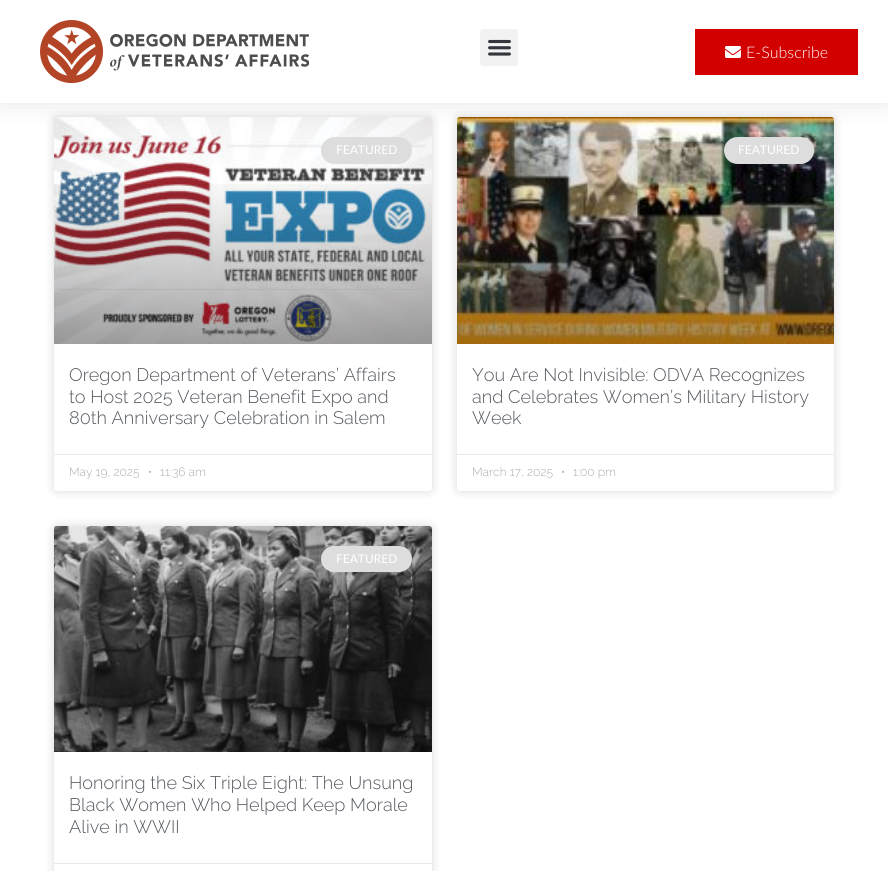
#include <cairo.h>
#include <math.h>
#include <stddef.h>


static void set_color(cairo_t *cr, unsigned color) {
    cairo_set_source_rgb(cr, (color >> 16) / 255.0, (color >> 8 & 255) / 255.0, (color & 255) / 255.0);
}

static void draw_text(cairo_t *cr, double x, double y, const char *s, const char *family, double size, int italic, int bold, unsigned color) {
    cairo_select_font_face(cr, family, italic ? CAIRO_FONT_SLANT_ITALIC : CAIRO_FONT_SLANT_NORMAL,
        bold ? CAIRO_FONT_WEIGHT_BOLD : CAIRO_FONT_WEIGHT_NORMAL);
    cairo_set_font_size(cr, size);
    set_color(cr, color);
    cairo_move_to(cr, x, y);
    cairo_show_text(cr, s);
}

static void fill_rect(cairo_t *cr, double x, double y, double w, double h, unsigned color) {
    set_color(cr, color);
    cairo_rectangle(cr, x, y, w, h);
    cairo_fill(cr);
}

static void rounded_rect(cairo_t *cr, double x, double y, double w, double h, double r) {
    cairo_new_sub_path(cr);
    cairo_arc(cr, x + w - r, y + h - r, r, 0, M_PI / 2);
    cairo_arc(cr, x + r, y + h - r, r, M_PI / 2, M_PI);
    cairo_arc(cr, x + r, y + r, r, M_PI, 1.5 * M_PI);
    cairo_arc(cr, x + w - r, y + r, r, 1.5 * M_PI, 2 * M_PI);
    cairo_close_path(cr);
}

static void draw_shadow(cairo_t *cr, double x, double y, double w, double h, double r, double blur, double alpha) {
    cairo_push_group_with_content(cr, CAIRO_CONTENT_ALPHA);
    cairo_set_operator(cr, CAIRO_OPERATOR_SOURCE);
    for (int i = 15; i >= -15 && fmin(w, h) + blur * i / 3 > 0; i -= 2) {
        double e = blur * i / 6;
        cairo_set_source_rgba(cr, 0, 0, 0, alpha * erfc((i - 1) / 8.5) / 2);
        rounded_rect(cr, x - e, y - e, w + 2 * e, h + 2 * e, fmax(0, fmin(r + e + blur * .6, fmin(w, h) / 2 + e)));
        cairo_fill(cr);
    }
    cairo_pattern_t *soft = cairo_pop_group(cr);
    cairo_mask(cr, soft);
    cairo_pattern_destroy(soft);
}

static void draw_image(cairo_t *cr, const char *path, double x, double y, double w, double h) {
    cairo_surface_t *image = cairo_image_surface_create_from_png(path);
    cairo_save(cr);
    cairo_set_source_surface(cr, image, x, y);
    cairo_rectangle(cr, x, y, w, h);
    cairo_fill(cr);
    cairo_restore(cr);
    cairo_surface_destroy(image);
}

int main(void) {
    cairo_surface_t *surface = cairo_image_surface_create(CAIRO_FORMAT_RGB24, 888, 871);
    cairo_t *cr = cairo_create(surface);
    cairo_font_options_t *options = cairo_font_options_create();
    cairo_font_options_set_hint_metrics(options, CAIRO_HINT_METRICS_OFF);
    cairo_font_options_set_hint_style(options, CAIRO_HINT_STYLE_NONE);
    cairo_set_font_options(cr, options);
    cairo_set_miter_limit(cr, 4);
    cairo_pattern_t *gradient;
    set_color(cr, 0xFFFFFF);
    cairo_paint(cr);
    set_color(cr, 0x000000);
    draw_shadow(cr, 54, 117, 378, 374, 3, 5, 0.15);
    set_color(cr, 0xFFFFFF);
    rounded_rect(cr, 54, 117, 378, 374, 3);
    cairo_fill(cr);
    draw_image(cr, "assets/img4.png", 54, 117, 378, 227);
    set_color(cr, 0xDDDDDD);
    rounded_rect(cr, 321, 137, 91, 27, 13.5);
    cairo_fill(cr);
    set_color(cr, 0x000000);
    draw_shadow(cr, 457, 117, 377, 374, 3, 5, 0.15);
    set_color(cr, 0xFFFFFF);
    rounded_rect(cr, 457, 117, 377, 374, 3);
    cairo_fill(cr);
    draw_image(cr, "assets/img5.png", 457, 117, 377, 227);
    set_color(cr, 0xDDDDDD);
    rounded_rect(cr, 724, 137, 90, 27, 13.5);
    cairo_fill(cr);
    set_color(cr, 0x000000);
    draw_shadow(cr, 0, 0, 888, 103, 0, 12.5, 0.1);
    fill_rect(cr, 0, 0, 888, 103, 0xFFFFFF);
    draw_image(cr, "assets/img1.png", 40, 20, 269, 63);
    set_color(cr, 0xF2F2F2);
    rounded_rect(cr, 480, 29, 38, 37, 3);
    cairo_fill(cr);
    draw_image(cr, "assets/img2.png", 488, 39, 23, 17);
    fill_rect(cr, 695, 29, 163, 46, 0xD30000);
    draw_image(cr, "assets/img3.png", 725, 46, 16, 12);
    draw_text(cr, 746, 58, "E-Subscribe", "Lato Light", 16, 0, 0, 0xFFFFFF);
    gradient = cairo_pattern_create_linear(243, 344, 243, 117);
    cairo_pattern_add_color_stop_rgba(gradient, 0, 0, 0, 0, 0.35);
    cairo_pattern_add_color_stop_rgba(gradient, 0.75, 0, 0, 0, 0);
    cairo_set_source(cr, gradient);
    cairo_pattern_destroy(gradient);
    cairo_rectangle(cr, 54, 184, 378, 160);
    cairo_fill(cr);
    draw_text(cr, 336, 154, "FEATURED", "Lato", 12, 0, 0, 0xFFFFFF);
    draw_text(cr, 69, 381, "Oregon Department of Veterans’ Affairs", "Raleway Light", 18.1, 0, 0, 0x54595F);
    draw_text(cr, 69, 403, "to Host 2025 Veteran Benefit Expo and", "Raleway Light", 18.1, 0, 0, 0x54595F);
    draw_text(cr, 69, 424, "80th Anniversary Celebration in Salem", "Raleway Light", 18.1, 0, 0, 0x54595F);
    fill_rect(cr, 54, 454, 378, 1, 0xEAEAEA);
    draw_text(cr, 69, 476, "May 19, 2025", "Raleway Light", 12, 0, 0, 0xADADAD);
    draw_text(cr, 148, 476, "•", "Raleway Light", 12, 0, 0, 0xADADAD);
    draw_text(cr, 160, 476, "11:36 am", "Raleway Light", 12, 0, 0, 0xADADAD);
    gradient = cairo_pattern_create_linear(646, 344, 646, 117);
    cairo_pattern_add_color_stop_rgba(gradient, 0, 0, 0, 0, 0.35);
    cairo_pattern_add_color_stop_rgba(gradient, 0.75, 0, 0, 0, 0);
    cairo_set_source(cr, gradient);
    cairo_pattern_destroy(gradient);
    cairo_rectangle(cr, 457, 184, 377, 160);
    cairo_fill(cr);
    draw_text(cr, 738, 154, "FEATURED", "Lato", 12, 0, 0, 0xFFFFFF);
    draw_text(cr, 472, 381, "You Are Not Invisible: ODVA Recognizes", "Raleway Light", 18.1, 0, 0, 0x54595F);
    draw_text(cr, 472, 403, "and Celebrates Women’s Military History", "Raleway Light", 18.1, 0, 0, 0x54595F);
    draw_text(cr, 472, 424, "Week", "Raleway Light", 18.1, 0, 0, 0x54595F);
    fill_rect(cr, 457, 454, 377, 1, 0xEAEAEA);
    draw_text(cr, 472, 476, "March 17, 2025", "Raleway Light", 12, 0, 0, 0xADADAD);
    draw_text(cr, 561, 476, "•", "Raleway Light", 12, 0, 0, 0xADADAD);
    draw_text(cr, 573, 476, "1:00 pm", "Raleway Light", 12, 0, 0, 0xADADAD);
    set_color(cr, 0x000000);
    draw_shadow(cr, 54, 526, 378, 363, 3, 5, 0.15);
    set_color(cr, 0xFFFFFF);
    rounded_rect(cr, 54, 526, 378, 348, 3);
    cairo_fill(cr);
    draw_image(cr, "assets/img6.png", 54, 526, 378, 226);
    gradient = cairo_pattern_create_linear(243, 752, 243, 526);
    cairo_pattern_add_color_stop_rgba(gradient, 0, 0, 0, 0, 0.35);
    cairo_pattern_add_color_stop_rgba(gradient, 0.75, 0, 0, 0, 0);
    cairo_set_source(cr, gradient);
    cairo_pattern_destroy(gradient);
    cairo_rectangle(cr, 54, 593, 378, 159);
    cairo_fill(cr);
    set_color(cr, 0xDDDDDD);
    rounded_rect(cr, 321, 546, 91, 26, 13);
    cairo_fill(cr);
    draw_text(cr, 336, 563, "FEATURED", "Lato", 12, 0, 0, 0xFFFFFF);
    draw_text(cr, 69, 789, "Honoring the Six Triple Eight: The Unsung", "Raleway Light", 18.1, 0, 0, 0x54595F);
    draw_text(cr, 69, 811, "Black Women Who Helped Keep Morale", "Raleway Light", 18.1, 0, 0, 0x54595F);
    draw_text(cr, 69, 833, "Alive in WWII", "Raleway Light", 18.1, 0, 0, 0x54595F);
    fill_rect(cr, 54, 863, 378, 1, 0xEAEAEA);
    cairo_surface_write_to_png(surface, "output.png");
    cairo_font_options_destroy(options);
    cairo_destroy(cr);
    cairo_surface_destroy(surface);
    return 0;
}
